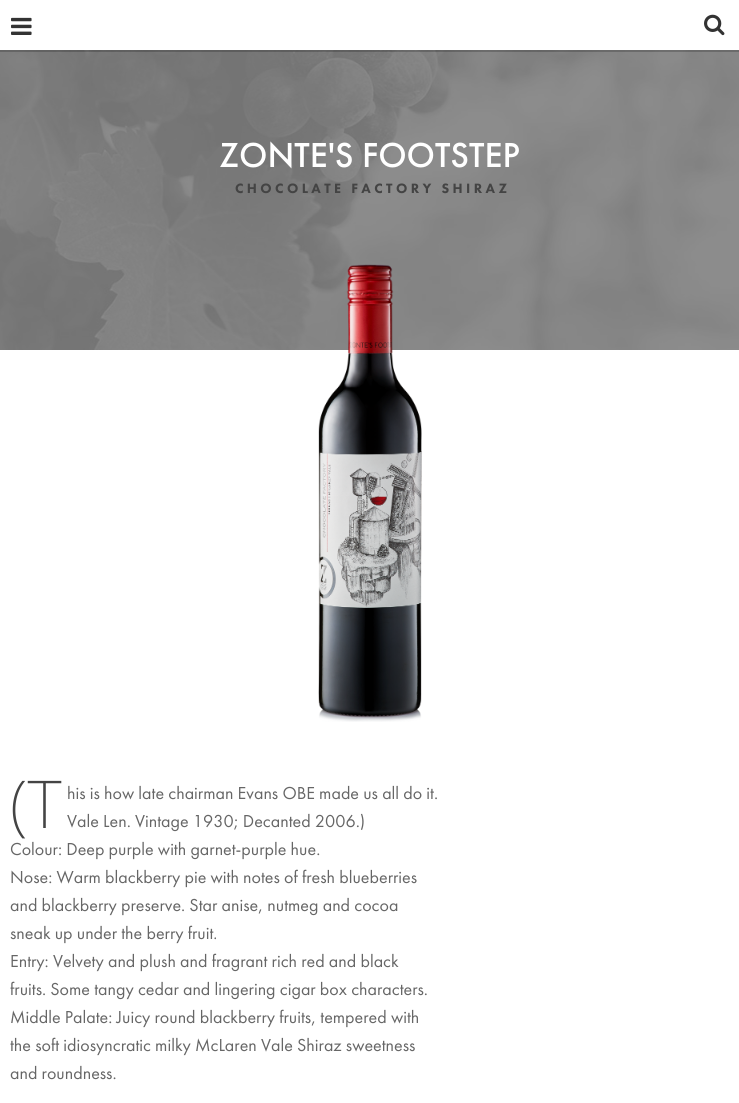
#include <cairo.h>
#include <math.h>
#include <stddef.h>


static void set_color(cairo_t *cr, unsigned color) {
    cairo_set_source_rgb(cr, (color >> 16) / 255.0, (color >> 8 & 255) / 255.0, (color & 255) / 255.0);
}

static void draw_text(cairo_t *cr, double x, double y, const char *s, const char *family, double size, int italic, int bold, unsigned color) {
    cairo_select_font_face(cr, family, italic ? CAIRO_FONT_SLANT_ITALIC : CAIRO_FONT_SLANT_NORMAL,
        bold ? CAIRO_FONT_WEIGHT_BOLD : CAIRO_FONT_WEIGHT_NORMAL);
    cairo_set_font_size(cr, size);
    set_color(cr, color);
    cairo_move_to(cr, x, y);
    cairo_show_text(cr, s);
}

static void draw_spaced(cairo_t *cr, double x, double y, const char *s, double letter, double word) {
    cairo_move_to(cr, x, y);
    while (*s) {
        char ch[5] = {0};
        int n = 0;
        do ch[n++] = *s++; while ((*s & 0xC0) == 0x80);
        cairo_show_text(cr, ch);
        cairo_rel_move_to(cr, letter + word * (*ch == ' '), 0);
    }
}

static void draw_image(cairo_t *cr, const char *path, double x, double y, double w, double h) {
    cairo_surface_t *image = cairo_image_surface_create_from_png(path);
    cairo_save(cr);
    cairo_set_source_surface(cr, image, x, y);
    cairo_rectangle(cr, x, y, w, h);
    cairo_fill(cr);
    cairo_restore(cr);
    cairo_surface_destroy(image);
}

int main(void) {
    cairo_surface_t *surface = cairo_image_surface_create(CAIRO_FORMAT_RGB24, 739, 1103);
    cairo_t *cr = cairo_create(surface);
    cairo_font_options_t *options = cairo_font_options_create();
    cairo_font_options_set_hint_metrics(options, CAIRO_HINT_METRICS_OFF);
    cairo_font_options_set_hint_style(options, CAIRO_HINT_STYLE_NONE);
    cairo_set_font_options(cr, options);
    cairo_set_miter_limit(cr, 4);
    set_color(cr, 0xFFFFFF);
    cairo_paint(cr);
    draw_image(cr, "assets/img3.png", 0, 50, 739, 300);
    cairo_set_source_rgba(cr, 0, 0, 0, 0.2);
    cairo_rectangle(cr, 0, 50, 739, 2);
    cairo_fill(cr);
    draw_image(cr, "assets/img1.png", 11, 17, 21, 18);
    draw_image(cr, "assets/img2.png", 704, 14, 21, 22);
    draw_text(cr, 219, 167, "ZONTE'S FOOTSTEP", "Futura PT Medium", 36, 0, 0, 0xFFFFFF);
    cairo_select_font_face(cr, "Futura PT Black", CAIRO_FONT_SLANT_NORMAL, CAIRO_FONT_WEIGHT_NORMAL);
    cairo_set_font_size(cr, 14);
    set_color(cr, 0x444444);
    draw_spaced(cr, 235, 193, "CHOCOLATE FACTORY SHIRAZ", 3.4, 0);
    draw_image(cr, "assets/img4.png", 318, 264, 104, 458);
    draw_text(cr, 10, 828, "(T", "Noto Sans ExtraLight", 66, 0, 0, 0x444444);
    draw_text(cr, 67, 799, "his is how late chairman Evans OBE made us all do it.", "Futura PT", 18, 0, 0, 0x666666);
    draw_text(cr, 67, 827, "Vale Len. Vintage 1930; Decanted 2006.)", "Futura PT", 18, 0, 0, 0x666666);
    draw_text(cr, 10, 855, "Colour: Deep purple with garnet-purple hue.", "Futura PT", 18, 0, 0, 0x666666);
    draw_text(cr, 10, 883, "Nose: Warm blackberry pie with notes of fresh blueberries", "Futura PT", 18, 0, 0, 0x666666);
    draw_text(cr, 10, 911, "and blackberry preserve. Star anise, nutmeg and cocoa", "Futura PT", 18, 0, 0, 0x666666);
    draw_text(cr, 10, 939, "sneak up under the berry fruit.", "Futura PT", 18, 0, 0, 0x666666);
    draw_text(cr, 10, 967, "Entry: Velvety and plush and fragrant rich red and black", "Futura PT", 18, 0, 0, 0x666666);
    draw_text(cr, 10, 995, "fruits. Some tangy cedar and lingering cigar box characters.", "Futura PT", 18, 0, 0, 0x666666);
    draw_text(cr, 10, 1023, "Middle Palate: Juicy round blackberry fruits, tempered with", "Futura PT", 18, 0, 0, 0x666666);
    draw_text(cr, 10, 1051, "the soft idiosyncratic milky McLaren Vale Shiraz sweetness", "Futura PT", 18, 0, 0, 0x666666);
    draw_text(cr, 10, 1079, "and roundness.", "Futura PT", 18, 0, 0, 0x666666);
    cairo_surface_write_to_png(surface, "output.png");
    cairo_font_options_destroy(options);
    cairo_destroy(cr);
    cairo_surface_destroy(surface);
    return 0;
}
